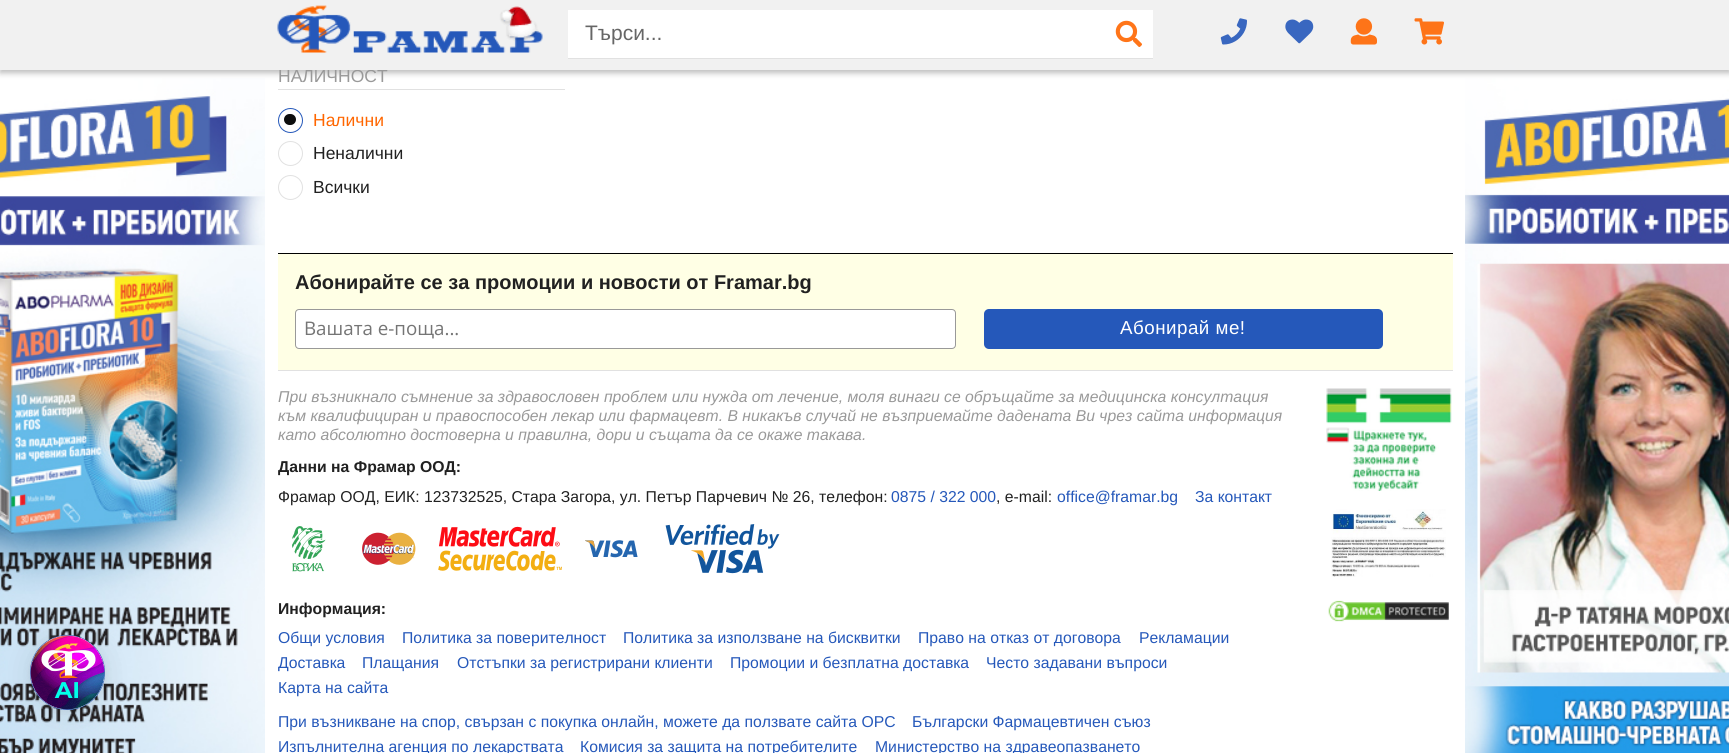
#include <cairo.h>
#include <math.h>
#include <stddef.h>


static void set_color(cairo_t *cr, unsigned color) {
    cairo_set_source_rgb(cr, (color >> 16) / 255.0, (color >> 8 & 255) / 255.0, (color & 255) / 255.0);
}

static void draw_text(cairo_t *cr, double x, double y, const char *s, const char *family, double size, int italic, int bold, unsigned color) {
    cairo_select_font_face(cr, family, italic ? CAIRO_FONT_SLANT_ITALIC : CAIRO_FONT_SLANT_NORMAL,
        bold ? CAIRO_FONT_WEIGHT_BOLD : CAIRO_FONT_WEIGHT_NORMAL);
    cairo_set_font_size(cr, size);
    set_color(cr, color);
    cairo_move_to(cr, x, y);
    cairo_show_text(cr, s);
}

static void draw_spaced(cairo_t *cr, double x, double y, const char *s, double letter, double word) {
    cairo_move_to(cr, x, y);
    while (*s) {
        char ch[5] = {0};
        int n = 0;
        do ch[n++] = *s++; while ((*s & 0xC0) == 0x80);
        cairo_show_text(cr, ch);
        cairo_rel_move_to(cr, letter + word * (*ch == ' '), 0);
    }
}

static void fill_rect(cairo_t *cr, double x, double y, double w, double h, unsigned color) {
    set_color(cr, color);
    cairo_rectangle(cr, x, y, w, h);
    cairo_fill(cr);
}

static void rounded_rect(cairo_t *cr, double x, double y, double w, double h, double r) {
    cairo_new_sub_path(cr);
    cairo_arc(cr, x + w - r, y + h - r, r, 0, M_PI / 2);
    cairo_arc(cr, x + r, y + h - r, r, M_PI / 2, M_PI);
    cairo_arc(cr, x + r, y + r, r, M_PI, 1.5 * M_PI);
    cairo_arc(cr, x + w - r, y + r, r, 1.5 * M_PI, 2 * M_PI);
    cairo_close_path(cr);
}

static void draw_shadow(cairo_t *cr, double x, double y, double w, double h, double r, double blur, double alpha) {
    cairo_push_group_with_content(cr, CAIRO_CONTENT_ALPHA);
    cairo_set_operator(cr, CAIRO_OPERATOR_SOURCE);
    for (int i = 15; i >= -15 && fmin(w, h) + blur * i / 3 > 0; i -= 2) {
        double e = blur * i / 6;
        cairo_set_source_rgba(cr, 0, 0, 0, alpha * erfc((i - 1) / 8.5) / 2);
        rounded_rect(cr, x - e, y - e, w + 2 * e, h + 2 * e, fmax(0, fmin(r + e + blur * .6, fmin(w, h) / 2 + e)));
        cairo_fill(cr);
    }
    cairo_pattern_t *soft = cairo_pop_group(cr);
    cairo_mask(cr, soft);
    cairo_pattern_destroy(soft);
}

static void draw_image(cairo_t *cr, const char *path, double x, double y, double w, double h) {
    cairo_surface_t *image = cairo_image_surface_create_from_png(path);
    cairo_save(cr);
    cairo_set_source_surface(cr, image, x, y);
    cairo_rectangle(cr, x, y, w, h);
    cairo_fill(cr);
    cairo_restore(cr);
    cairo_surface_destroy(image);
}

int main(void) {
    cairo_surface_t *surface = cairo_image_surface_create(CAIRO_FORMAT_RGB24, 1729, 753);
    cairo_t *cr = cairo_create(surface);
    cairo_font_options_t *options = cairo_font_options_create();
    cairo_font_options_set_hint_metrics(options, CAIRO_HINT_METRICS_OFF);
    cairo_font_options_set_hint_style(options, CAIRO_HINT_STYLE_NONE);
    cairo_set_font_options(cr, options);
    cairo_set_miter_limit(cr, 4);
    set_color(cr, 0xFFFFFF);
    cairo_paint(cr);
    draw_image(cr, "assets/img15.png", 0, 78, 1729, 675);
    fill_rect(cr, 265, 78, 1200, 675, 0xFFFFFF);
    set_color(cr, 0xBBBBBB);
    draw_shadow(cr, 0, 3, 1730, 70, 0, 3, 1);
    draw_text(cr, 278, 82, "НАЛИЧНОСТ", "Liberation Sans", 17.5, 0, 0, 0x999999);
    fill_rect(cr, 0, 0, 1729, 70, 0xF1F1F1);
    draw_image(cr, "assets/img1.png", 277, 5, 266, 48);
    fill_rect(cr, 568, 10, 585, 48, 0xFFFFFF);
    fill_rect(cr, 568, 58, 585, 1, 0xE1E1E1);
    draw_text(cr, 585, 40, "Търси...", "Liberation Sans", 21, 0, 0, 0x666666);
    draw_image(cr, "assets/img2.png", 1115, 20, 27, 27);
    draw_image(cr, "assets/img3.png", 1220, 18, 27, 27);
    draw_image(cr, "assets/img4.png", 1285, 19, 29, 25);
    draw_image(cr, "assets/img5.png", 1350, 18, 27, 27);
    draw_image(cr, "assets/img6.png", 1414, 18, 30, 27);
    fill_rect(cr, 278, 89, 287, 1, 0xE1E1E1);
    cairo_arc(cr, 290.5, 120.5, 12, 0, 2 * M_PI);
    set_color(cr, 0x2558BA);
    cairo_set_line_width(cr, 1);
    cairo_stroke(cr);
    draw_text(cr, 313, 126, "Налични", "Liberation Sans", 17.5, 0, 0, 0xFF6600);
    set_color(cr, 0x0D0D0D);
    rounded_rect(cr, 284, 114, 12, 11, 5.5);
    cairo_fill(cr);
    cairo_arc(cr, 290.5, 153.5, 12, 0, 2 * M_PI);
    set_color(cr, 0xE1E1E1);
    cairo_stroke(cr);
    draw_text(cr, 313, 159, "Неналични", "Liberation Sans", 17.5, 0, 0, 0x212121);
    cairo_new_path(cr);
    cairo_arc(cr, 290.5, 187.5, 12, 0, 2 * M_PI);
    set_color(cr, 0xE1E1E1);
    cairo_stroke(cr);
    draw_text(cr, 313, 193, "Всички", "Liberation Sans", 17.5, 0, 0, 0x212121);
    fill_rect(cr, 278, 253, 1175, 1, 0x000000);
    fill_rect(cr, 278, 254, 1175, 116, 0xFFFFE5);
    fill_rect(cr, 278, 370, 1175, 1, 0xE1E1E1);
    draw_text(cr, 295, 289, "Абонирайте се за промоции и новости от Framar.bg", "Liberation Sans", 20, 0, 1, 0x212121);
    set_color(cr, 0xFFFFFF);
    rounded_rect(cr, 295.5, 309.5, 660, 39, 3.5);
    cairo_fill_preserve(cr);
    set_color(cr, 0x999999);
    cairo_stroke(cr);
    draw_text(cr, 304, 335, "Вашата е-поща...", "Open Sans", 18.75, 0, 0, 0x757575);
    set_color(cr, 0x2558BA);
    rounded_rect(cr, 984, 309, 399, 40, 5);
    cairo_fill(cr);
    cairo_select_font_face(cr, "Liberation Sans", CAIRO_FONT_SLANT_NORMAL, CAIRO_FONT_WEIGHT_NORMAL);
    set_color(cr, 0xFFFFFF);
    draw_spaced(cr, 1120, 334, "Абонирай ме!", 0.5, 0);
    draw_text(cr, 278, 402, "При възникнало съмнение за здравословен проблем или нужда от лечение, моля винаги се обръщайте за медицинска консултация", "Liberation Sans", 15.75, 1, 0, 0x999999);
    draw_text(cr, 278, 421, "към квалифициран и правоспособен лекар или фармацевт. В никакъв случай не възприемайте дадената Ви чрез сайта информация", "Liberation Sans", 15.75, 1, 0, 0x999999);
    draw_text(cr, 278, 440, "като абсолютно достоверна и правилна, дори и същата да се окаже такава.", "Liberation Sans", 15.75, 1, 0, 0x999999);
    draw_text(cr, 278, 472, "Данни на Фрамар ООД:", "Liberation Sans", 15.75, 0, 1, 0x212121);
    draw_text(cr, 278, 502, "Фрамар ООД, ЕИК: 123732525, Стара Загора, ул. Петър Парчевич № 26, телефон:", "Liberation Sans", 15.75, 0, 0, 0x212121);
    draw_text(cr, 891, 502, "0875 / 322 000", "Liberation Sans", 15.75, 0, 0, 0x2558BA);
    draw_text(cr, 996, 502, ", e-mail:", "Liberation Sans", 15.75, 0, 0, 0x212121);
    draw_text(cr, 1057, 502, "office@framar.bg", "Liberation Sans", 15.75, 0, 0, 0x2558BA);
    draw_text(cr, 1195, 502, "За контакт", "Liberation Sans", 15.75, 0, 0, 0x2558BA);
    draw_image(cr, "assets/img7.png", 292, 526, 34, 46);
    draw_image(cr, "assets/img8.png", 362, 532, 54, 33);
    draw_image(cr, "assets/img9.png", 438, 526, 124, 45);
    draw_image(cr, "assets/img10.png", 585, 540, 53, 18);
    draw_image(cr, "assets/img11.png", 665, 524, 115, 50);
    draw_text(cr, 278, 614, "Информация:", "Liberation Sans", 15.75, 0, 1, 0x212121);
    draw_text(cr, 278, 643, "Общи условия", "Liberation Sans", 15.75, 0, 0, 0x2558BA);
    draw_text(cr, 402, 643, "Политика за поверителност", "Liberation Sans", 15.75, 0, 0, 0x2558BA);
    draw_text(cr, 623, 643, "Политика за използване на бисквитки", "Liberation Sans", 15.75, 0, 0, 0x2558BA);
    draw_text(cr, 918, 643, "Право на отказ от договора", "Liberation Sans", 15.75, 0, 0, 0x2558BA);
    draw_text(cr, 1139, 643, "Рекламации", "Liberation Sans", 15.75, 0, 0, 0x2558BA);
    draw_text(cr, 278, 668, "Доставка", "Liberation Sans", 15.75, 0, 0, 0x2558BA);
    draw_text(cr, 362, 668, "Плащания", "Liberation Sans", 15.75, 0, 0, 0x2558BA);
    draw_text(cr, 457, 668, "Отстъпки за регистрирани клиенти", "Liberation Sans", 15.75, 0, 0, 0x2558BA);
    draw_text(cr, 730, 668, "Промоции и безплатна доставка", "Liberation Sans", 15.75, 0, 0, 0x2558BA);
    draw_text(cr, 986, 668, "Често задавани въпроси", "Liberation Sans", 15.75, 0, 0, 0x2558BA);
    draw_text(cr, 278, 693, "Карта на сайта", "Liberation Sans", 15.75, 0, 0, 0x2558BA);
    draw_text(cr, 278, 727, "При възникване на спор, свързан с покупка онлайн, можете да ползвате сайта ОРС", "Liberation Sans", 15.75, 0, 0, 0x2558BA);
    draw_text(cr, 912, 727, "Български Фармацевтичен съюз", "Liberation Sans", 15.75, 0, 0, 0x2558BA);
    draw_text(cr, 278, 752, "Изпълнителна агенция по лекарствата", "Liberation Sans", 15.75, 0, 0, 0x2558BA);
    draw_text(cr, 580, 752, "Комисия за защита на потребителите", "Liberation Sans", 15.75, 0, 0, 0x2558BA);
    draw_text(cr, 875, 752, "Министерство на здравеопазването", "Liberation Sans", 15.75, 0, 0, 0x2558BA);
    draw_image(cr, "assets/img12.png", 1326, 388, 126, 103);
    draw_image(cr, "assets/img13.png", 1331, 509, 115, 68);
    draw_image(cr, "assets/img14.png", 1328, 600, 121, 22);
    set_color(cr, 0x000000);
    draw_shadow(cr, 30, 638, 75, 75, 37.5, 15, 0.08);
    draw_shadow(cr, 30, 636, 75, 75, 37.5, 4, 0.06);
    set_color(cr, 0x2558BA);
    cairo_arc(cr, 67.5, 672.5, 37.5, 0, 2 * M_PI);
    cairo_fill(cr);
    draw_image(cr, "assets/img16.png", 30, 635, 75, 75);
    cairo_surface_write_to_png(surface, "output.png");
    cairo_font_options_destroy(options);
    cairo_destroy(cr);
    cairo_surface_destroy(surface);
    return 0;
}
